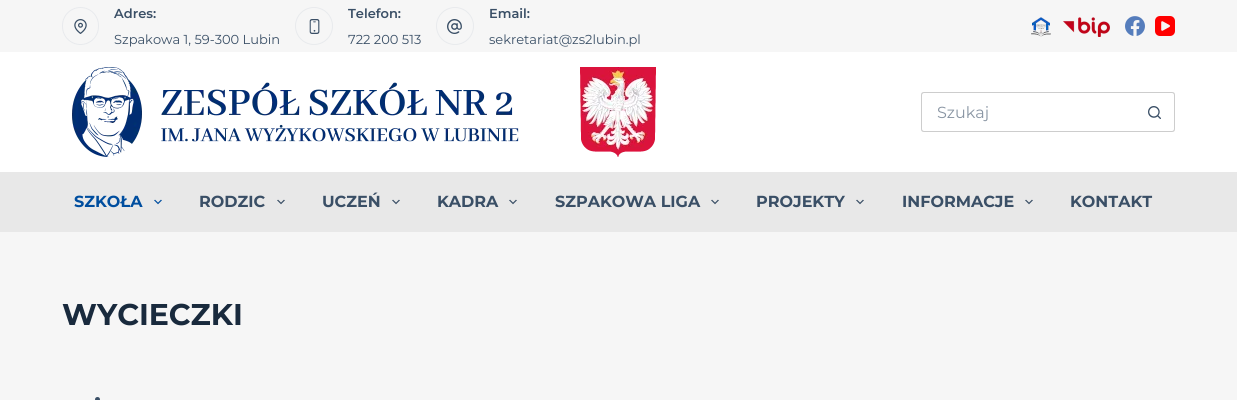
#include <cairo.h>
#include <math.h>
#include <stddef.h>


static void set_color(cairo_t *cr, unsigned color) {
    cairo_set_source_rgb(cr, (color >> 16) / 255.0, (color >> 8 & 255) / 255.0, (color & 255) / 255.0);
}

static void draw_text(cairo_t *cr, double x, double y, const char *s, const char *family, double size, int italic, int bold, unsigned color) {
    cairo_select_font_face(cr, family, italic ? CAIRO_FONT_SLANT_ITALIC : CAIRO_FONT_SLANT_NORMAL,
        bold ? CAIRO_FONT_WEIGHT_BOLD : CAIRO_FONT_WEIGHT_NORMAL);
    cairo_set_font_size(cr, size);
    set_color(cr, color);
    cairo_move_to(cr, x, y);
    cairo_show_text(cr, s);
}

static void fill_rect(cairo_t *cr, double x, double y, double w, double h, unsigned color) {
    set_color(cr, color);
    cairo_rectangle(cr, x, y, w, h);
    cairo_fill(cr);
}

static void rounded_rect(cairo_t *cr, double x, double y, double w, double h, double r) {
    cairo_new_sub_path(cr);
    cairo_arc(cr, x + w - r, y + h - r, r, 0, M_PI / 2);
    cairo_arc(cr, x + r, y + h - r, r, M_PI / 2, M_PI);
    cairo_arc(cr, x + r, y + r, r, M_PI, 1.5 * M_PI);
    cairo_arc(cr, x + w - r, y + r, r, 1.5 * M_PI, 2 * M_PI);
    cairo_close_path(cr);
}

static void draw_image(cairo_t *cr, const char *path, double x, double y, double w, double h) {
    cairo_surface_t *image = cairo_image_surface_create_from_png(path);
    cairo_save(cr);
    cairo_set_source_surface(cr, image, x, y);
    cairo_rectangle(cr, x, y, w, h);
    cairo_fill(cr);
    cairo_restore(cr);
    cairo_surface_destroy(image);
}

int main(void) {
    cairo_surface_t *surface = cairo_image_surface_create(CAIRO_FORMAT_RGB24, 1237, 400);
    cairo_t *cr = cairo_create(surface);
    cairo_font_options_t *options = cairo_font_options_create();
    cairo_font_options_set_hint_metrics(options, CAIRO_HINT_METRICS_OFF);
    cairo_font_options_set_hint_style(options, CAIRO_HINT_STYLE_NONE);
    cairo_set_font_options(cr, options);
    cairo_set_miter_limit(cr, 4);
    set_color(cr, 0xF6F6F6);
    cairo_paint(cr);
    rounded_rect(cr, 62.5, 7.5, 36, 37, 18);
    set_color(cr, 0xE8EAED);
    cairo_set_line_width(cr, 1);
    cairo_stroke(cr);
    draw_image(cr, "assets/img1.png", 74, 19, 13, 15);
    draw_text(cr, 114, 18, "Adres:", "Montserrat SemiBold", 13, 0, 0, 0x3A4F66);
    draw_text(cr, 114, 44, "Szpakowa 1, 59-300 Lubin", "Montserrat", 13, 0, 0, 0x3A4F66);
    cairo_new_path(cr);
    cairo_arc(cr, 314, 26, 18.5, 0, 2 * M_PI);
    set_color(cr, 0xE8EAED);
    cairo_stroke(cr);
    draw_image(cr, "assets/img2.png", 309, 19, 11, 15);
    draw_text(cr, 348, 18, "Telefon:", "Montserrat SemiBold", 13, 0, 0, 0x3A4F66);
    draw_text(cr, 348, 44, "722 200 513", "Montserrat", 13, 0, 0, 0x3A4F66);
    cairo_new_path(cr);
    cairo_arc(cr, 455, 26, 18.5, 0, 2 * M_PI);
    set_color(cr, 0xE8EAED);
    cairo_stroke(cr);
    draw_image(cr, "assets/img3.png", 447, 19, 15, 15);
    draw_text(cr, 489, 18, "Email:", "Montserrat SemiBold", 13, 0, 0, 0x3A4F66);
    draw_text(cr, 489, 44, "sekretariat@zs2lubin.pl", "Montserrat", 13, 0, 0, 0x3A4F66);
    draw_image(cr, "assets/img4.png", 1031, 17, 20, 20);
    draw_image(cr, "assets/img5.png", 1063, 17, 47, 20);
    draw_image(cr, "assets/img6.png", 1125, 16, 20, 20);
    draw_image(cr, "assets/img7.png", 1155, 16, 20, 20);
    fill_rect(cr, 0, 52, 1237, 120, 0xFFFFFF);
    draw_image(cr, "assets/img8.png", 72, 67, 447, 90);
    draw_image(cr, "assets/img9.png", 580, 67, 76, 90);
    set_color(cr, 0xCDCDCD);
    cairo_set_fill_rule(cr, CAIRO_FILL_RULE_EVEN_ODD);
    cairo_new_path(cr);
    cairo_move_to(cr, 924, 92);
    cairo_line_to(cr, 1135, 92);
    cairo_line_to(cr, 1135, 132);
    cairo_line_to(cr, 924, 132);
    cairo_curve_to(cr, 922, 132, 921, 131, 921, 129);
    cairo_line_to(cr, 921, 95);
    cairo_curve_to(cr, 921, 93, 922, 92, 924, 92);
    cairo_close_path(cr);
    cairo_move_to(cr, 924, 93);
    cairo_line_to(cr, 1135, 93);
    cairo_line_to(cr, 1135, 131);
    cairo_line_to(cr, 924, 131);
    cairo_curve_to(cr, 923, 131, 922, 130, 922, 129);
    cairo_line_to(cr, 922, 95);
    cairo_curve_to(cr, 922, 94, 923, 93, 924, 93);
    cairo_close_path(cr);
    cairo_fill(cr);
    draw_text(cr, 937, 118, "Szukaj", "Montserrat", 16, 0, 0, 0x8995A3);
    set_color(cr, 0xCDCDCD);
    cairo_new_path(cr);
    cairo_move_to(cr, 1135, 92);
    cairo_line_to(cr, 1172, 92);
    cairo_curve_to(cr, 1174, 92, 1175, 93, 1175, 95);
    cairo_line_to(cr, 1175, 129);
    cairo_curve_to(cr, 1175, 131, 1174, 132, 1172, 132);
    cairo_line_to(cr, 1135, 132);
    cairo_close_path(cr);
    cairo_move_to(cr, 1135, 93);
    cairo_line_to(cr, 1172, 93);
    cairo_curve_to(cr, 1173, 93, 1174, 94, 1174, 95);
    cairo_line_to(cr, 1174, 129);
    cairo_curve_to(cr, 1174, 130, 1173, 131, 1172, 131);
    cairo_line_to(cr, 1135, 131);
    cairo_close_path(cr);
    cairo_fill(cr);
    draw_image(cr, "assets/img10.png", 1148, 106, 13, 13);
    fill_rect(cr, 0, 172, 1237, 60, 0xE8E8E8);
    draw_text(cr, 74, 207, "SZKOŁA", "Montserrat", 16, 0, 1, 0x004E9F);
    draw_image(cr, "assets/img11.png", 154, 199, 8, 6);
    draw_text(cr, 199, 207, "RODZIC", "Montserrat", 16, 0, 1, 0x3A4F66);
    draw_image(cr, "assets/img12.png", 277, 199, 8, 6);
    draw_text(cr, 322, 207, "UCZEŃ", "Montserrat", 16, 0, 1, 0x3A4F66);
    draw_image(cr, "assets/img12.png", 392, 199, 8, 6);
    draw_text(cr, 437, 207, "KADRA", "Montserrat", 16, 0, 1, 0x3A4F66);
    draw_image(cr, "assets/img12.png", 509, 199, 8, 6);
    draw_text(cr, 555, 207, "SZPAKOWA LIGA", "Montserrat", 16, 0, 1, 0x3A4F66);
    draw_image(cr, "assets/img12.png", 711, 199, 8, 6);
    draw_text(cr, 756, 207, "PROJEKTY", "Montserrat", 16, 0, 1, 0x3A4F66);
    draw_image(cr, "assets/img12.png", 856, 199, 8, 6);
    draw_text(cr, 902, 207, "INFORMACJE", "Montserrat", 16, 0, 1, 0x3A4F66);
    draw_image(cr, "assets/img12.png", 1025, 199, 8, 6);
    draw_text(cr, 1070, 207, "KONTAKT", "Montserrat", 16, 0, 1, 0x3A4F66);
    draw_text(cr, 62, 325, "WYCIECZKI", "Montserrat", 30, 0, 1, 0x192A3D);
    set_color(cr, 0x3A4F66);
    cairo_new_path(cr);
    cairo_arc(cr, 97.5, 399.5, 2.5, 0, 2 * M_PI);
    cairo_fill(cr);
    cairo_surface_write_to_png(surface, "output.png");
    cairo_font_options_destroy(options);
    cairo_destroy(cr);
    cairo_surface_destroy(surface);
    return 0;
}
